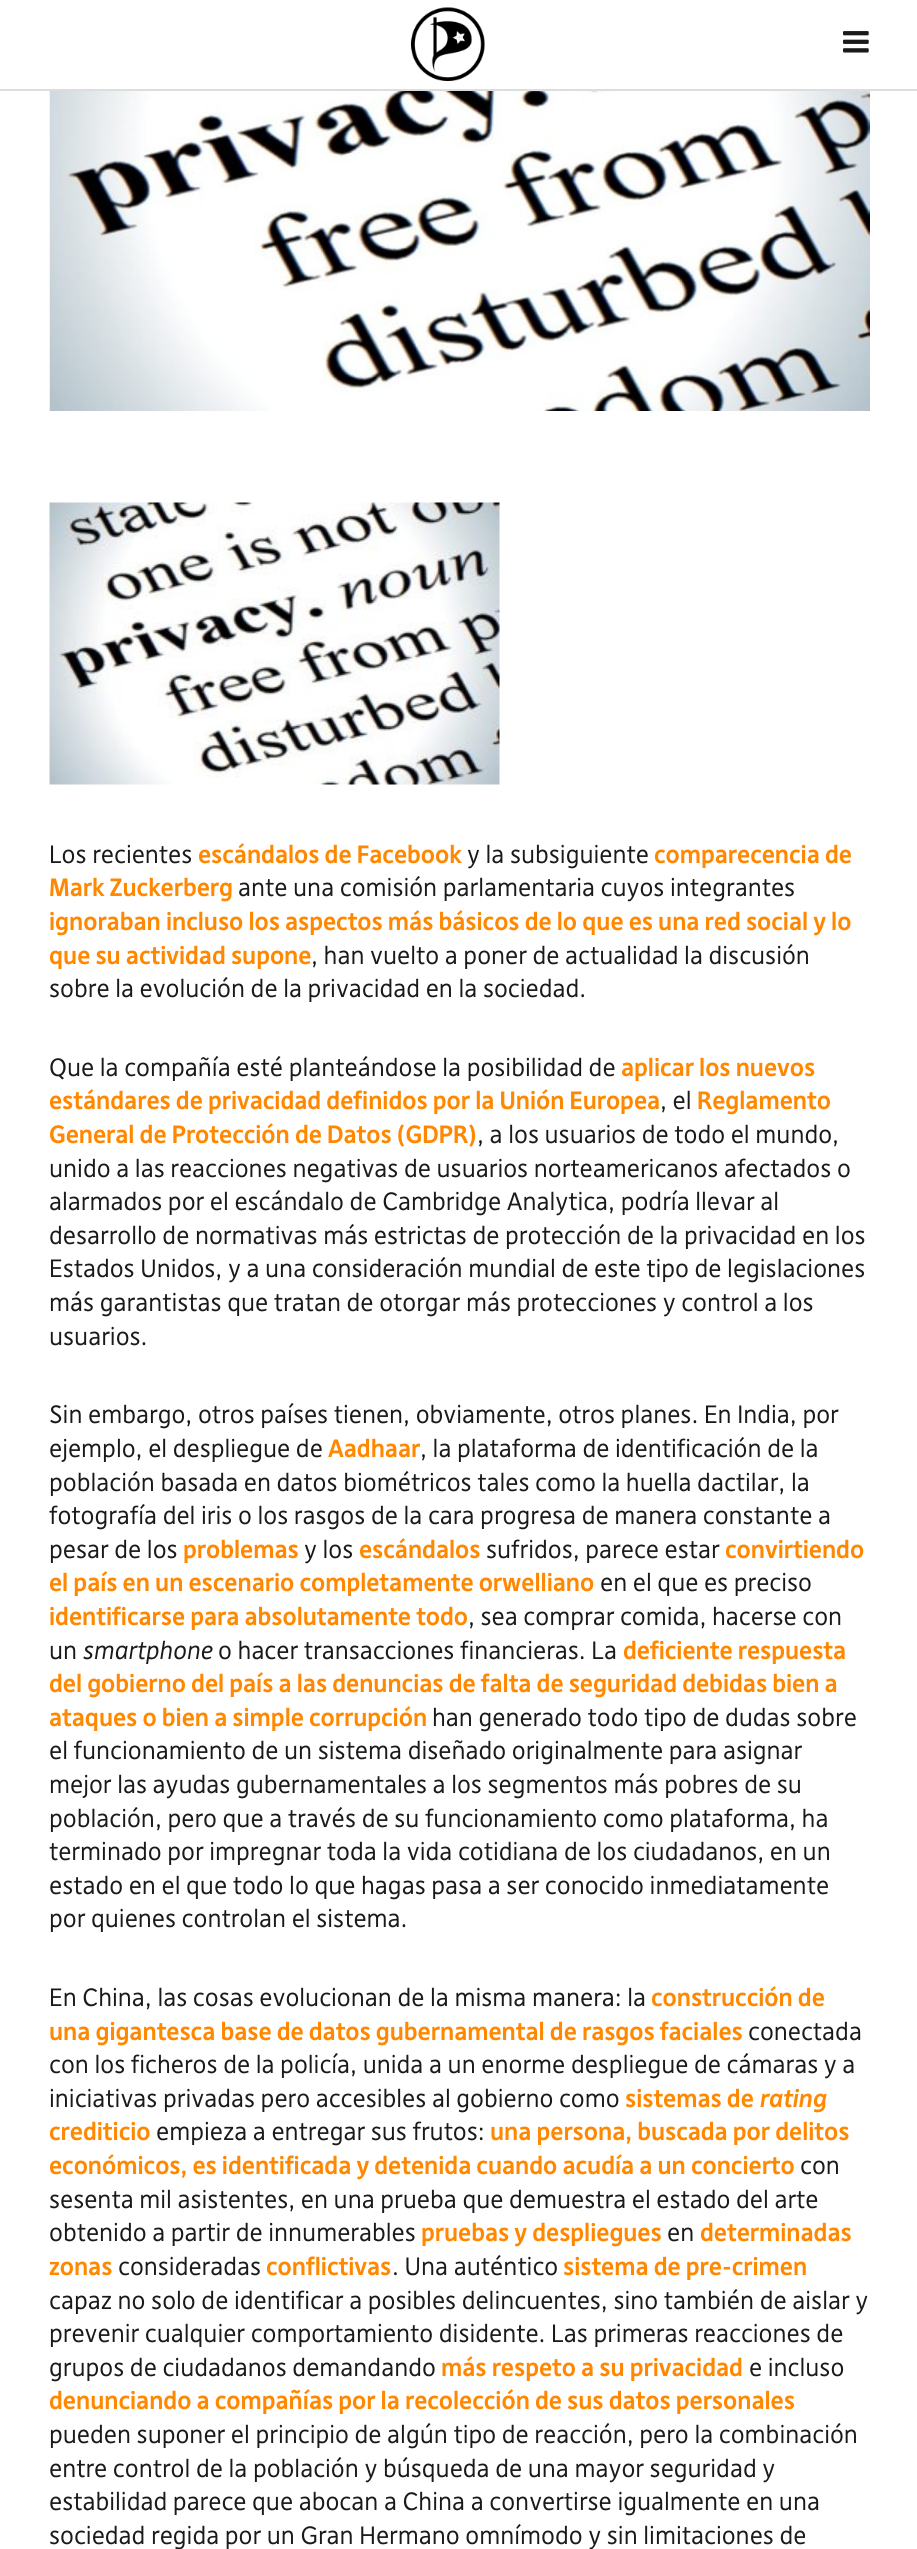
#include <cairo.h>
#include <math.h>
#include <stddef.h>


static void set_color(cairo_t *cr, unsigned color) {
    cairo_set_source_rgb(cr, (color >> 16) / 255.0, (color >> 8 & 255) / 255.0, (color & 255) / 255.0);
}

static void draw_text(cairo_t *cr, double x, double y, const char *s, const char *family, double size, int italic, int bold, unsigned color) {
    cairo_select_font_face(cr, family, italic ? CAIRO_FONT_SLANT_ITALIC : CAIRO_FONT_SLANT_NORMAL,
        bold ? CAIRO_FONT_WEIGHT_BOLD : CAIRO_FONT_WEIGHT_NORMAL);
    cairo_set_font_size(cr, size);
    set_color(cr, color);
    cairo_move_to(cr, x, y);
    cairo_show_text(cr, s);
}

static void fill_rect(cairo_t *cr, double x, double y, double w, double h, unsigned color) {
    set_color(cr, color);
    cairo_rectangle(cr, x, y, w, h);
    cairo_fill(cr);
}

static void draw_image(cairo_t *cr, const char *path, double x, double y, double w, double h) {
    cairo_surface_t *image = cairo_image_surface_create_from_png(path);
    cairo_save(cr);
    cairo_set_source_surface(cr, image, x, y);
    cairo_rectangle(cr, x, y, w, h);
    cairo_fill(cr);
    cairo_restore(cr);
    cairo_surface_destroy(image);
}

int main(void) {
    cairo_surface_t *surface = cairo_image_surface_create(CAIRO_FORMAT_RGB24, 917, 2549);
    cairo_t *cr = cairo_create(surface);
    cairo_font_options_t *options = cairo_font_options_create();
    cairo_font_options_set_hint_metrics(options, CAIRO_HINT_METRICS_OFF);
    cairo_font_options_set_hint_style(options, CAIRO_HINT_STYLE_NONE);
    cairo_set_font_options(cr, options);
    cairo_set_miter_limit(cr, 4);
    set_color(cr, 0xFFFFFF);
    cairo_paint(cr);
    fill_rect(cr, 0, 89, 917, 2, 0xDDDDDD);
    draw_image(cr, "assets/img1.png", 410, 7, 75, 74);
    draw_image(cr, "assets/img2.png", 843, 31, 26, 22);
    draw_image(cr, "assets/img3.png", 49, 91, 821, 320);
    draw_image(cr, "assets/img4.png", 49, 502, 451, 283);
    draw_text(cr, 49, 863, "Los recientes", "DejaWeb", 24, 0, 0, 0x1A1A1A);
    draw_text(cr, 198, 863, "escándalos de Facebook", "DejaWeb", 24, 0, 1, 0xFF8800);
    draw_text(cr, 467, 863, "y la subsiguiente", "DejaWeb", 24, 0, 0, 0x1A1A1A);
    draw_text(cr, 654, 863, "comparecencia de", "DejaWeb", 24, 0, 1, 0xFF8800);
    draw_text(cr, 49, 896, "Mark Zuckerberg", "DejaWeb", 24, 0, 1, 0xFF8800);
    draw_text(cr, 238, 896, "ante una comisión parlamentaria cuyos integrantes", "DejaWeb", 24, 0, 0, 0x1A1A1A);
    draw_text(cr, 49, 930, "ignoraban incluso los aspectos más básicos de lo que es una red social y lo", "DejaWeb", 24, 0, 1, 0xFF8800);
    draw_text(cr, 49, 964, "que su actividad supone", "DejaWeb", 24, 0, 1, 0xFF8800);
    draw_text(cr, 311, 964, ", han vuelto a poner de actualidad la discusión", "DejaWeb", 24, 0, 0, 0x1A1A1A);
    draw_text(cr, 49, 997, "sobre la evolución de la privacidad en la sociedad.", "DejaWeb", 24, 0, 0, 0x1A1A1A);
    draw_text(cr, 49, 1076, "Que la compañía esté planteándose la posibilidad de", "DejaWeb", 24, 0, 0, 0x1A1A1A);
    draw_text(cr, 621, 1076, "aplicar los nuevos", "DejaWeb", 24, 0, 1, 0xFF8800);
    draw_text(cr, 49, 1109, "estándares de privacidad definidos por la Unión Europea", "DejaWeb", 24, 0, 1, 0xFF8800);
    draw_text(cr, 660, 1109, ", el", "DejaWeb", 24, 0, 0, 0x1A1A1A);
    draw_text(cr, 697, 1109, "Reglamento", "DejaWeb", 24, 0, 1, 0xFF8800);
    draw_text(cr, 49, 1143, "General de Protección de Datos (GDPR)", "DejaWeb", 24, 0, 1, 0xFF8800);
    draw_text(cr, 477, 1143, ", a los usuarios de todo el mundo,", "DejaWeb", 24, 0, 0, 0x1A1A1A);
    draw_text(cr, 49, 1177, "unido a las reacciones negativas de usuarios norteamericanos afectados o", "DejaWeb", 24, 0, 0, 0x1A1A1A);
    draw_text(cr, 49, 1210, "alarmados por el escándalo de Cambridge Analytica, podría llevar al", "DejaWeb", 24, 0, 0, 0x1A1A1A);
    draw_text(cr, 49, 1244, "desarrollo de normativas más estrictas de protección de la privacidad en los", "DejaWeb", 24, 0, 0, 0x1A1A1A);
    draw_text(cr, 49, 1277, "Estados Unidos, y a una consideración mundial de este tipo de legislaciones", "DejaWeb", 24, 0, 0, 0x1A1A1A);
    draw_text(cr, 49, 1311, "más garantistas que tratan de otorgar más protecciones y control a los", "DejaWeb", 24, 0, 0, 0x1A1A1A);
    draw_text(cr, 49, 1345, "usuarios.", "DejaWeb", 24, 0, 0, 0x1A1A1A);
    draw_text(cr, 49, 1423, "Sin embargo, otros países tienen, obviamente, otros planes. En India, por", "DejaWeb", 24, 0, 0, 0x1A1A1A);
    draw_text(cr, 49, 1457, "ejemplo, el despliegue de", "DejaWeb", 24, 0, 0, 0x1A1A1A);
    draw_text(cr, 328, 1457, "Aadhaar", "DejaWeb", 24, 0, 1, 0xFF8800);
    draw_text(cr, 420, 1457, ", la plataforma de identificación de la", "DejaWeb", 24, 0, 0, 0x1A1A1A);
    draw_text(cr, 49, 1491, "población basada en datos biométricos tales como la huella dactilar, la", "DejaWeb", 24, 0, 0, 0x1A1A1A);
    draw_text(cr, 49, 1524, "fotografía del iris o los rasgos de la cara progresa de manera constante a", "DejaWeb", 24, 0, 0, 0x1A1A1A);
    draw_text(cr, 49, 1558, "pesar de los", "DejaWeb", 24, 0, 0, 0x1A1A1A);
    draw_text(cr, 183, 1558, "problemas", "DejaWeb", 24, 0, 1, 0xFF8800);
    draw_text(cr, 304, 1558, "y los", "DejaWeb", 24, 0, 0, 0x1A1A1A);
    draw_text(cr, 359, 1558, "escándalos", "DejaWeb", 24, 0, 1, 0xFF8800);
    draw_text(cr, 486, 1558, "sufridos, parece estar", "DejaWeb", 24, 0, 0, 0x1A1A1A);
    draw_text(cr, 725, 1558, "convirtiendo", "DejaWeb", 24, 0, 1, 0xFF8800);
    draw_text(cr, 49, 1591, "el país en un escenario completamente orwelliano", "DejaWeb", 24, 0, 1, 0xFF8800);
    draw_text(cr, 600, 1591, "en el que es preciso", "DejaWeb", 24, 0, 0, 0x1A1A1A);
    draw_text(cr, 49, 1625, "identificarse para absolutamente todo", "DejaWeb", 24, 0, 1, 0xFF8800);
    draw_text(cr, 468, 1625, ", sea comprar comida, hacerse con", "DejaWeb", 24, 0, 0, 0x1A1A1A);
    draw_text(cr, 49, 1659, "un", "DejaWeb", 24, 0, 0, 0x1A1A1A);
    draw_text(cr, 82, 1659, "smartphone", "DejaWeb", 24, 1, 0, 0x1A1A1A);
    draw_text(cr, 218, 1659, "o hacer transacciones financieras. La", "DejaWeb", 24, 0, 0, 0x1A1A1A);
    draw_text(cr, 623, 1659, "deficiente respuesta", "DejaWeb", 24, 0, 1, 0xFF8800);
    draw_text(cr, 49, 1692, "del gobierno del país a las denuncias de falta de seguridad debidas bien a", "DejaWeb", 24, 0, 1, 0xFF8800);
    draw_text(cr, 49, 1726, "ataques o bien a simple corrupción", "DejaWeb", 24, 0, 1, 0xFF8800);
    draw_text(cr, 432, 1726, "han generado todo tipo de dudas sobre", "DejaWeb", 24, 0, 0, 0x1A1A1A);
    draw_text(cr, 49, 1759, "el funcionamiento de un sistema diseñado originalmente para asignar", "DejaWeb", 24, 0, 0, 0x1A1A1A);
    draw_text(cr, 49, 1793, "mejor las ayudas gubernamentales a los segmentos más pobres de su", "DejaWeb", 24, 0, 0, 0x1A1A1A);
    draw_text(cr, 49, 1827, "población, pero que a través de su funcionamiento como plataforma, ha", "DejaWeb", 24, 0, 0, 0x1A1A1A);
    draw_text(cr, 49, 1860, "terminado por impregnar toda la vida cotidiana de los ciudadanos, en un", "DejaWeb", 24, 0, 0, 0x1A1A1A);
    draw_text(cr, 49, 1894, "estado en el que todo lo que hagas pasa a ser conocido inmediatamente", "DejaWeb", 24, 0, 0, 0x1A1A1A);
    draw_text(cr, 49, 1927, "por quienes controlan el sistema.", "DejaWeb", 24, 0, 0, 0x1A1A1A);
    draw_text(cr, 49, 2006, "En China, las cosas evolucionan de la misma manera: la", "DejaWeb", 24, 0, 0, 0x1A1A1A);
    draw_text(cr, 651, 2006, "construcción de", "DejaWeb", 24, 0, 1, 0xFF8800);
    draw_text(cr, 49, 2040, "una gigantesca base de datos gubernamental de rasgos faciales", "DejaWeb", 24, 0, 1, 0xFF8800);
    draw_text(cr, 748, 2040, "conectada", "DejaWeb", 24, 0, 0, 0x1A1A1A);
    draw_text(cr, 49, 2073, "con los ficheros de la policía, unida a un enorme despliegue de cámaras y a", "DejaWeb", 24, 0, 0, 0x1A1A1A);
    draw_text(cr, 49, 2107, "iniciativas privadas pero accesibles al gobierno como", "DejaWeb", 24, 0, 0, 0x1A1A1A);
    draw_text(cr, 625, 2107, "sistemas de", "DejaWeb", 24, 0, 1, 0xFF8800);
    draw_text(cr, 759, 2107, "rating", "DejaWeb", 24, 1, 1, 0xFF8800);
    draw_text(cr, 49, 2140, "crediticio", "DejaWeb", 24, 0, 1, 0xFF8800);
    draw_text(cr, 156, 2140, "empieza a entregar sus frutos:", "DejaWeb", 24, 0, 0, 0x1A1A1A);
    draw_text(cr, 490, 2140, "una persona, buscada por delitos", "DejaWeb", 24, 0, 1, 0xFF8800);
    draw_text(cr, 49, 2174, "económicos, es identificada y detenida cuando acudía a un concierto", "DejaWeb", 24, 0, 1, 0xFF8800);
    draw_text(cr, 800, 2174, "con", "DejaWeb", 24, 0, 0, 0x1A1A1A);
    draw_text(cr, 49, 2208, "sesenta mil asistentes, en una prueba que demuestra el estado del arte", "DejaWeb", 24, 0, 0, 0x1A1A1A);
    draw_text(cr, 49, 2241, "obtenido a partir de innumerables", "DejaWeb", 24, 0, 0, 0x1A1A1A);
    draw_text(cr, 421, 2241, "pruebas y despliegues", "DejaWeb", 24, 0, 1, 0xFF8800);
    draw_text(cr, 667, 2241, "en", "DejaWeb", 24, 0, 0, 0x1A1A1A);
    draw_text(cr, 700, 2241, "determinadas", "DejaWeb", 24, 0, 1, 0xFF8800);
    draw_text(cr, 49, 2275, "zonas", "DejaWeb", 24, 0, 1, 0xFF8800);
    draw_text(cr, 118, 2275, "consideradas", "DejaWeb", 24, 0, 0, 0x1A1A1A);
    draw_text(cr, 266, 2275, "conflictivas", "DejaWeb", 24, 0, 1, 0xFF8800);
    draw_text(cr, 392, 2275, ". Una auténtico", "DejaWeb", 24, 0, 0, 0x1A1A1A);
    draw_text(cr, 563, 2275, "sistema de pre-crimen", "DejaWeb", 24, 0, 1, 0xFF8800);
    draw_text(cr, 49, 2309, "capaz no solo de identificar a posibles delincuentes, sino también de aislar y", "DejaWeb", 24, 0, 0, 0x1A1A1A);
    draw_text(cr, 49, 2342, "prevenir cualquier comportamiento disidente. Las primeras reacciones de", "DejaWeb", 24, 0, 0, 0x1A1A1A);
    draw_text(cr, 49, 2376, "grupos de ciudadanos demandando", "DejaWeb", 24, 0, 0, 0x1A1A1A);
    draw_text(cr, 441, 2376, "más respeto a su privacidad", "DejaWeb", 24, 0, 1, 0xFF8800);
    draw_text(cr, 749, 2376, "e incluso", "DejaWeb", 24, 0, 0, 0x1A1A1A);
    draw_text(cr, 49, 2409, "denunciando a compañías por la recolección de sus datos personales", "DejaWeb", 24, 0, 1, 0xFF8800);
    draw_text(cr, 49, 2443, "pueden suponer el principio de algún tipo de reacción, pero la combinación", "DejaWeb", 24, 0, 0, 0x1A1A1A);
    draw_text(cr, 49, 2477, "entre control de la población y búsqueda de una mayor seguridad y", "DejaWeb", 24, 0, 0, 0x1A1A1A);
    draw_text(cr, 49, 2510, "estabilidad parece que abocan a China a convertirse igualmente en una", "DejaWeb", 24, 0, 0, 0x1A1A1A);
    draw_text(cr, 49, 2544, "sociedad regida por un Gran Hermano omnímodo y sin limitaciones de", "DejaWeb", 24, 0, 0, 0x1A1A1A);
    cairo_surface_write_to_png(surface, "output.png");
    cairo_font_options_destroy(options);
    cairo_destroy(cr);
    cairo_surface_destroy(surface);
    return 0;
}
